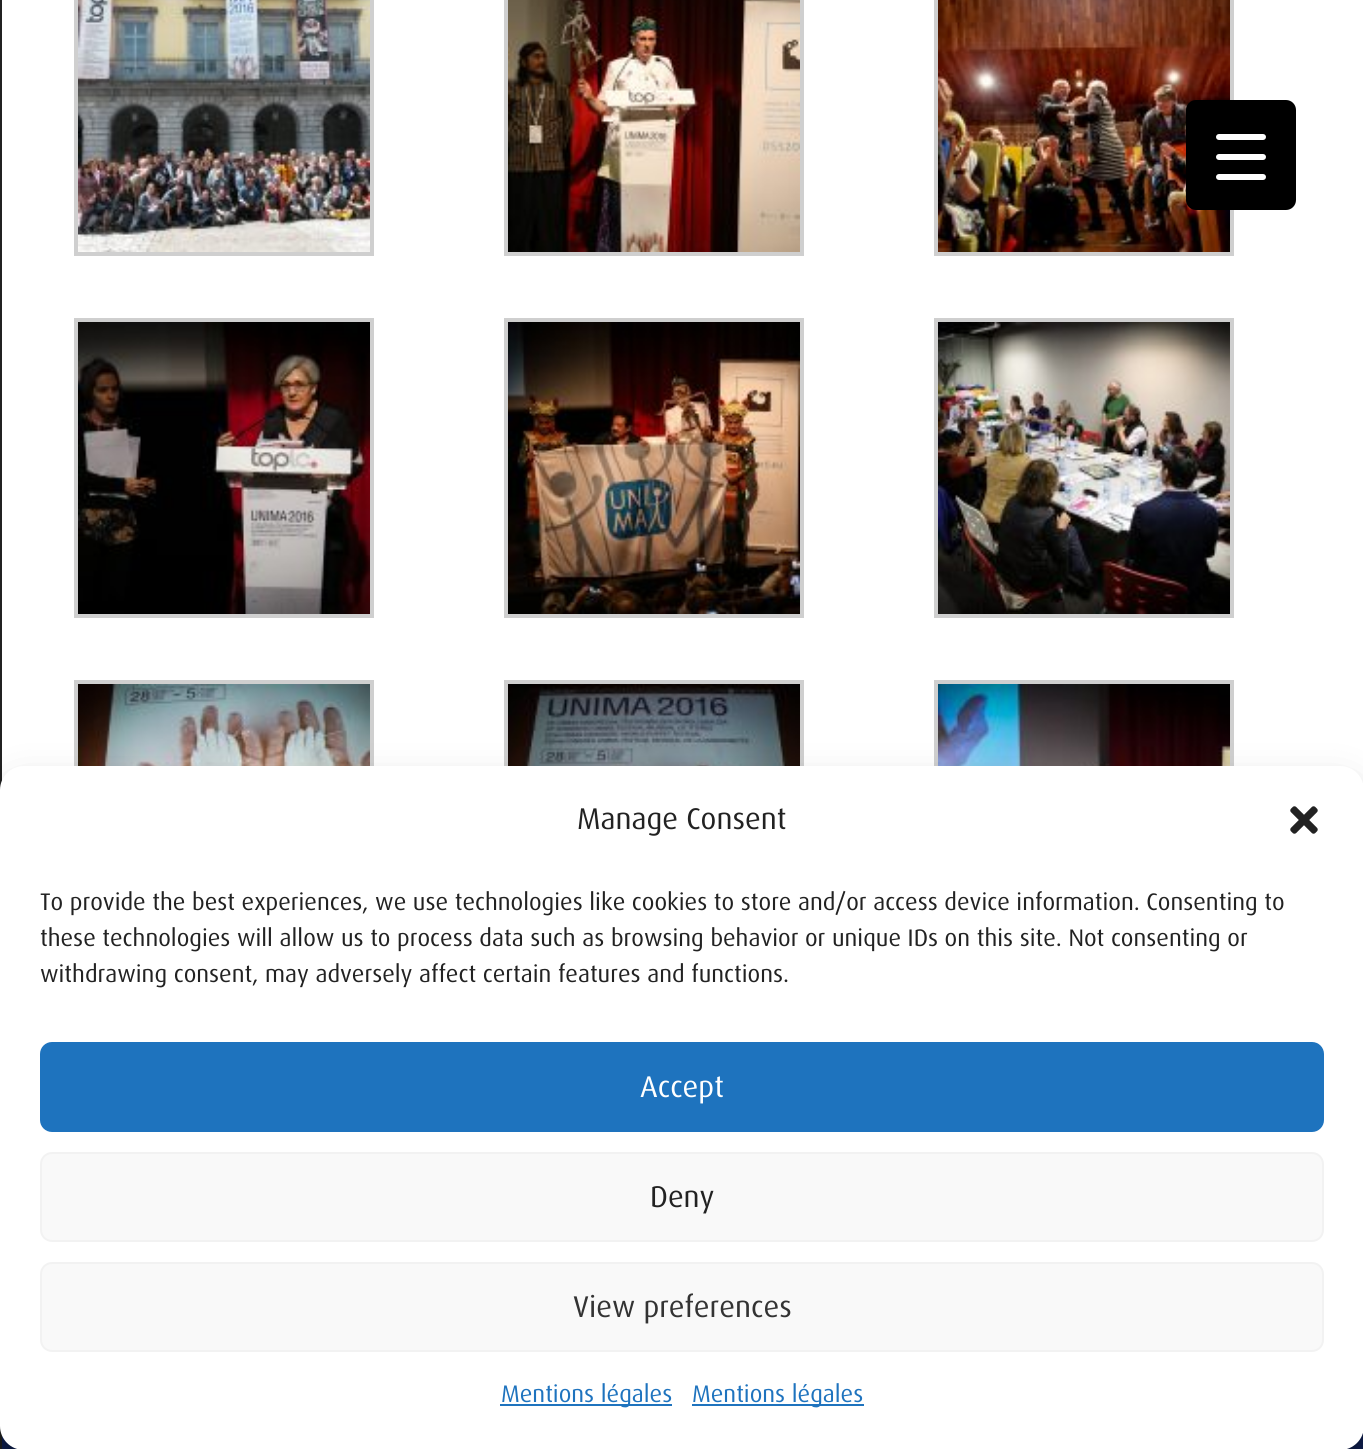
#include <cairo.h>
#include <math.h>
#include <stddef.h>


static void set_color(cairo_t *cr, unsigned color) {
    cairo_set_source_rgb(cr, (color >> 16) / 255.0, (color >> 8 & 255) / 255.0, (color & 255) / 255.0);
}

static void draw_text(cairo_t *cr, double x, double y, const char *s, const char *family, double size, int italic, int bold, unsigned color) {
    cairo_select_font_face(cr, family, italic ? CAIRO_FONT_SLANT_ITALIC : CAIRO_FONT_SLANT_NORMAL,
        bold ? CAIRO_FONT_WEIGHT_BOLD : CAIRO_FONT_WEIGHT_NORMAL);
    cairo_set_font_size(cr, size);
    set_color(cr, color);
    cairo_move_to(cr, x, y);
    cairo_show_text(cr, s);
}

static void fill_rect(cairo_t *cr, double x, double y, double w, double h, unsigned color) {
    set_color(cr, color);
    cairo_rectangle(cr, x, y, w, h);
    cairo_fill(cr);
}

static void rounded_rect(cairo_t *cr, double x, double y, double w, double h, double r) {
    cairo_new_sub_path(cr);
    cairo_arc(cr, x + w - r, y + h - r, r, 0, M_PI / 2);
    cairo_arc(cr, x + r, y + h - r, r, M_PI / 2, M_PI);
    cairo_arc(cr, x + r, y + r, r, M_PI, 1.5 * M_PI);
    cairo_arc(cr, x + w - r, y + r, r, 1.5 * M_PI, 2 * M_PI);
    cairo_close_path(cr);
}

static void draw_shadow(cairo_t *cr, double x, double y, double w, double h, double r, double blur, double alpha) {
    cairo_push_group_with_content(cr, CAIRO_CONTENT_ALPHA);
    cairo_set_operator(cr, CAIRO_OPERATOR_SOURCE);
    for (int i = 15; i >= -15 && fmin(w, h) + blur * i / 3 > 0; i -= 2) {
        double e = blur * i / 6;
        cairo_set_source_rgba(cr, 0, 0, 0, alpha * erfc((i - 1) / 8.5) / 2);
        rounded_rect(cr, x - e, y - e, w + 2 * e, h + 2 * e, fmax(0, fmin(r + e + blur * .6, fmin(w, h) / 2 + e)));
        cairo_fill(cr);
    }
    cairo_pattern_t *soft = cairo_pop_group(cr);
    cairo_mask(cr, soft);
    cairo_pattern_destroy(soft);
}

static void draw_image(cairo_t *cr, const char *path, double x, double y, double w, double h) {
    cairo_surface_t *image = cairo_image_surface_create_from_png(path);
    cairo_save(cr);
    cairo_set_source_surface(cr, image, x, y);
    cairo_rectangle(cr, x, y, w, h);
    cairo_fill(cr);
    cairo_restore(cr);
    cairo_surface_destroy(image);
}

int main(void) {
    cairo_surface_t *surface = cairo_image_surface_create(CAIRO_FORMAT_RGB24, 1363, 1449);
    cairo_t *cr = cairo_create(surface);
    cairo_font_options_t *options = cairo_font_options_create();
    cairo_font_options_set_hint_metrics(options, CAIRO_HINT_METRICS_OFF);
    cairo_font_options_set_hint_style(options, CAIRO_HINT_STYLE_NONE);
    cairo_set_font_options(cr, options);
    cairo_set_miter_limit(cr, 4);
    cairo_pattern_t *gradient;
    set_color(cr, 0xFFFFFF);
    cairo_paint(cr);
    fill_rect(cr, 0, 0, 2, 1449, 0x212121);
    cairo_rectangle(cr, 76, -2, 296, 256);
    set_color(cr, 0xCFCFCF);
    cairo_set_line_width(cr, 4);
    cairo_stroke(cr);
    draw_image(cr, "assets/img1.png", 78, 0, 292, 252);
    cairo_rectangle(cr, 506, -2, 296, 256);
    cairo_stroke(cr);
    draw_image(cr, "assets/img2.png", 508, 0, 292, 252);
    cairo_rectangle(cr, 936, -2, 296, 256);
    cairo_stroke(cr);
    draw_image(cr, "assets/img3.png", 938, 0, 292, 252);
    cairo_rectangle(cr, 76, 320, 296, 296);
    cairo_stroke(cr);
    draw_image(cr, "assets/img4.png", 78, 322, 292, 292);
    cairo_rectangle(cr, 506, 320, 296, 296);
    cairo_stroke(cr);
    draw_image(cr, "assets/img5.png", 508, 322, 292, 292);
    cairo_rectangle(cr, 936, 320, 296, 296);
    cairo_stroke(cr);
    draw_image(cr, "assets/img6.png", 938, 322, 292, 292);
    cairo_rectangle(cr, 76, 682, 296, 296);
    cairo_stroke(cr);
    draw_image(cr, "assets/img7.png", 78, 684, 292, 82);
    cairo_rectangle(cr, 506, 682, 296, 296);
    cairo_stroke(cr);
    draw_image(cr, "assets/img8.png", 508, 684, 292, 82);
    cairo_rectangle(cr, 936, 682, 296, 296);
    cairo_stroke(cr);
    draw_image(cr, "assets/img9.png", 938, 684, 292, 82);
    gradient = cairo_pattern_create_linear(682, 1166, 682, 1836);
    cairo_pattern_add_color_stop_rgba(gradient, 0, 0.031, 0.063, 0.165, 1);
    cairo_pattern_add_color_stop_rgba(gradient, 1, 0.102, 0.22, 0.557, 1);
    cairo_set_source(cr, gradient);
    cairo_pattern_destroy(gradient);
    cairo_rectangle(cr, 2, 1433, 1361, 16);
    cairo_fill(cr);
    set_color(cr, 0x000000);
    rounded_rect(cr, 1186, 100, 110, 110, 10);
    cairo_fill(cr);
    set_color(cr, 0xFFFFFF);
    rounded_rect(cr, 1216, 154, 50, 6, 3);
    cairo_fill(cr);
    rounded_rect(cr, 1216, 134, 50, 6, 3);
    cairo_fill(cr);
    rounded_rect(cr, 1216, 174, 50, 6, 3);
    cairo_fill(cr);
    set_color(cr, 0x000000);
    draw_shadow(cr, 0, 778, 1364, 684, 24, 6, 0.23);
    draw_shadow(cr, 0, 786, 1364, 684, 24, 20, 0.19);
    set_color(cr, 0xFFFFFF);
    rounded_rect(cr, 0, 766, 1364, 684, 24);
    cairo_fill(cr);
    draw_text(cr, 577, 829, "Manage Consent", "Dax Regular", 30, 0, 0, 0x222222);
    draw_image(cr, "assets/img10.png", 1290, 806, 28, 28);
    draw_text(cr, 40, 910, "To provide the best experiences, we use technologies like cookies to store and/or access device information. Consenting to", "Dax Regular", 24, 0, 0, 0x222222);
    draw_text(cr, 40, 946, "these technologies will allow us to process data such as browsing behavior or unique IDs on this site. Not consenting or", "Dax Regular", 24, 0, 0, 0x222222);
    draw_text(cr, 40, 982, "withdrawing consent, may adversely affect certain features and functions.", "Dax Regular", 24, 0, 0, 0x222222);
    set_color(cr, 0x1E73BE);
    rounded_rect(cr, 41, 1043, 1282, 88, 11);
    cairo_fill_preserve(cr);
    cairo_set_line_width(cr, 2);
    cairo_stroke(cr);
    draw_text(cr, 640, 1097, "Accept", "Dax Regular", 30, 0, 0, 0xFFFFFF);
    set_color(cr, 0xF9F9F9);
    rounded_rect(cr, 41, 1153, 1282, 88, 11);
    cairo_fill_preserve(cr);
    set_color(cr, 0xF2F2F2);
    cairo_stroke(cr);
    draw_text(cr, 650, 1207, "Deny", "Dax Regular", 30, 0, 0, 0x222222);
    set_color(cr, 0xF9F9F9);
    rounded_rect(cr, 41, 1263, 1282, 88, 11);
    cairo_fill_preserve(cr);
    set_color(cr, 0xF2F2F2);
    cairo_stroke(cr);
    draw_text(cr, 573, 1317, "View preferences", "Dax Regular", 30, 0, 0, 0x333333);
    fill_rect(cr, 500, 1404, 172, 2, 0x1E73BE);
    draw_text(cr, 501, 1402, "Mentions légales", "Dax Regular", 24, 0, 0, 0x1E73BE);
    fill_rect(cr, 692, 1404, 172, 2, 0x1E73BE);
    draw_text(cr, 692, 1402, "Mentions légales", "Dax Regular", 24, 0, 0, 0x1E73BE);
    cairo_surface_write_to_png(surface, "output.png");
    cairo_font_options_destroy(options);
    cairo_destroy(cr);
    cairo_surface_destroy(surface);
    return 0;
}
